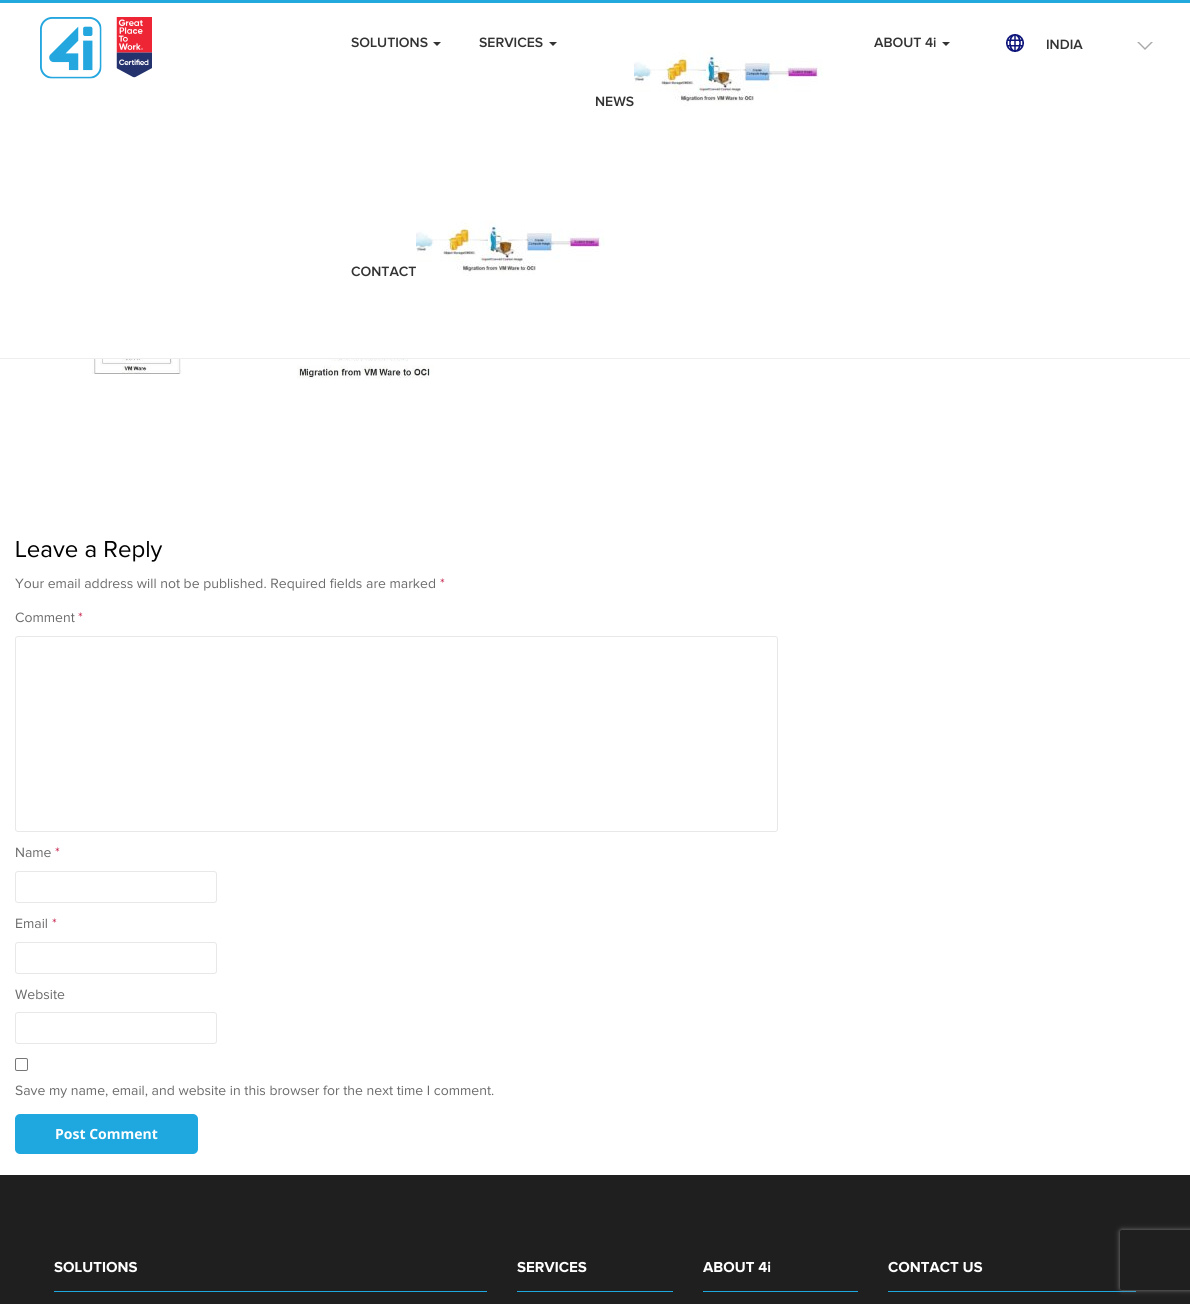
#include <cairo.h>
#include <math.h>
#include <stddef.h>


static void set_color(cairo_t *cr, unsigned color) {
    cairo_set_source_rgb(cr, (color >> 16) / 255.0, (color >> 8 & 255) / 255.0, (color & 255) / 255.0);
}

static void draw_text(cairo_t *cr, double x, double y, const char *s, const char *family, double size, int italic, int bold, unsigned color) {
    cairo_select_font_face(cr, family, italic ? CAIRO_FONT_SLANT_ITALIC : CAIRO_FONT_SLANT_NORMAL,
        bold ? CAIRO_FONT_WEIGHT_BOLD : CAIRO_FONT_WEIGHT_NORMAL);
    cairo_set_font_size(cr, size);
    set_color(cr, color);
    cairo_move_to(cr, x, y);
    cairo_show_text(cr, s);
}

static void fill_rect(cairo_t *cr, double x, double y, double w, double h, unsigned color) {
    set_color(cr, color);
    cairo_rectangle(cr, x, y, w, h);
    cairo_fill(cr);
}

static void rounded_rect(cairo_t *cr, double x, double y, double w, double h, double r) {
    cairo_new_sub_path(cr);
    cairo_arc(cr, x + w - r, y + h - r, r, 0, M_PI / 2);
    cairo_arc(cr, x + r, y + h - r, r, M_PI / 2, M_PI);
    cairo_arc(cr, x + r, y + r, r, M_PI, 1.5 * M_PI);
    cairo_arc(cr, x + w - r, y + r, r, 1.5 * M_PI, 2 * M_PI);
    cairo_close_path(cr);
}

static void draw_shadow(cairo_t *cr, double x, double y, double w, double h, double r, double blur, double alpha) {
    cairo_push_group_with_content(cr, CAIRO_CONTENT_ALPHA);
    cairo_set_operator(cr, CAIRO_OPERATOR_SOURCE);
    for (int i = 15; i >= -15 && fmin(w, h) + blur * i / 3 > 0; i -= 2) {
        double e = blur * i / 6;
        cairo_set_source_rgba(cr, 0, 0, 0, alpha * erfc((i - 1) / 8.5) / 2);
        rounded_rect(cr, x - e, y - e, w + 2 * e, h + 2 * e, fmax(0, fmin(r + e + blur * .6, fmin(w, h) / 2 + e)));
        cairo_fill(cr);
    }
    cairo_pattern_t *soft = cairo_pop_group(cr);
    cairo_mask(cr, soft);
    cairo_pattern_destroy(soft);
}

static void draw_image(cairo_t *cr, const char *path, double x, double y, double w, double h) {
    cairo_surface_t *image = cairo_image_surface_create_from_png(path);
    cairo_save(cr);
    cairo_set_source_surface(cr, image, x, y);
    cairo_rectangle(cr, x, y, w, h);
    cairo_fill(cr);
    cairo_restore(cr);
    cairo_surface_destroy(image);
}

int main(void) {
    cairo_surface_t *surface = cairo_image_surface_create(CAIRO_FORMAT_RGB24, 1190, 1304);
    cairo_t *cr = cairo_create(surface);
    cairo_font_options_t *options = cairo_font_options_create();
    cairo_font_options_set_hint_metrics(options, CAIRO_HINT_METRICS_OFF);
    cairo_font_options_set_hint_style(options, CAIRO_HINT_STYLE_NONE);
    cairo_set_font_options(cr, options);
    cairo_set_miter_limit(cr, 4);
    set_color(cr, 0xFFFFFF);
    cairo_paint(cr);
    fill_rect(cr, 0, 0, 1190, 3, 0x24A9DF);
    fill_rect(cr, 0, 358, 1190, 1, 0xEEEEEE);
    draw_image(cr, "assets/img1.png", 40, 17, 112, 62);
    draw_text(cr, 351, 47, "SOLUTIONS", "Proxima Nova SemiBold", 14, 0, 0, 0x333333);
    cairo_new_path(cr);
    cairo_move_to(cr, 433, 42);
    cairo_line_to(cr, 441, 42);
    cairo_line_to(cr, 437, 46);
    cairo_close_path(cr);
    cairo_fill(cr);
    draw_text(cr, 479, 47, "SERVICES", "Proxima Nova SemiBold", 14, 0, 0, 0x333333);
    cairo_new_path(cr);
    cairo_move_to(cr, 549, 42);
    cairo_line_to(cr, 557, 42);
    cairo_line_to(cr, 553, 46);
    cairo_close_path(cr);
    cairo_fill(cr);
    draw_text(cr, 874, 47, "ABOUT 4i", "Proxima Nova SemiBold", 14, 0, 0, 0x333333);
    cairo_new_path(cr);
    cairo_move_to(cr, 942, 42);
    cairo_line_to(cr, 950, 42);
    cairo_line_to(cr, 946, 46);
    cairo_close_path(cr);
    cairo_fill(cr);
    draw_text(cr, 595, 106, "NEWS", "Proxima Nova SemiBold", 14, 0, 0, 0x333333);
    draw_image(cr, "assets/img2.png", 634, 50, 189, 56);
    draw_text(cr, 351, 276, "CONTACT", "Proxima Nova SemiBold", 14, 0, 0, 0x333333);
    draw_image(cr, "assets/img2.png", 416, 220, 189, 56);
    draw_image(cr, "assets/img3.png", 1006, 34, 18, 18);
    draw_text(cr, 1046, 49, "INDIA", "Proxima Nova SemiBold", 14, 0, 0, 0x333333);
    set_color(cr, 0xA9A9A9);
    cairo_new_path(cr);
    cairo_move_to(cr, 1137, 42);
    cairo_line_to(cr, 1153, 42);
    cairo_line_to(cr, 1145, 50);
    cairo_close_path(cr);
    cairo_fill(cr);
    set_color(cr, 0xFFFFFF);
    cairo_new_path(cr);
    cairo_move_to(cr, 1137, 40);
    cairo_line_to(cr, 1153, 40);
    cairo_line_to(cr, 1145, 48);
    cairo_close_path(cr);
    cairo_fill(cr);
    draw_image(cr, "assets/img4.png", 49, 359, 496, 20);
    draw_text(cr, 15, 557, "Leave a Reply", "Proxima Nova", 24, 0, 0, 0x000000);
    draw_text(cr, 15, 588, "Your email address will not be published. Required fields are marked", "Proxima Nova", 14, 0, 0, 0x6B6B6B);
    draw_text(cr, 440, 588, "*", "Proxima Nova", 14, 0, 0, 0xC7254E);
    draw_text(cr, 15, 622, "Comment", "Proxima Nova", 14, 0, 0, 0x6B6B6B);
    draw_text(cr, 78, 622, "*", "Proxima Nova", 14, 0, 0, 0xC7254E);
    rounded_rect(cr, 15.5, 636.5, 762, 195, 2.5);
    set_color(cr, 0xE8E8E8);
    cairo_set_line_width(cr, 1);
    cairo_stroke(cr);
    draw_text(cr, 15, 857, "Name", "Proxima Nova", 14, 0, 0, 0x6B6B6B);
    draw_text(cr, 55, 857, "*", "Proxima Nova", 14, 0, 0, 0xC7254E);
    rounded_rect(cr, 15.5, 871.5, 201, 31, 2.5);
    set_color(cr, 0xE8E8E8);
    cairo_stroke(cr);
    draw_text(cr, 15, 928, "Email", "Proxima Nova", 14, 0, 0, 0x6B6B6B);
    draw_text(cr, 52, 928, "*", "Proxima Nova", 14, 0, 0, 0xC7254E);
    rounded_rect(cr, 15.5, 942.5, 201, 31, 2.5);
    set_color(cr, 0xE8E8E8);
    cairo_stroke(cr);
    draw_text(cr, 15, 999, "Website", "Proxima Nova", 14, 0, 0, 0x6B6B6B);
    rounded_rect(cr, 15.5, 1012.5, 201, 31, 2.5);
    set_color(cr, 0xE8E8E8);
    cairo_stroke(cr);
    rounded_rect(cr, 15.5, 1058.5, 12, 12, 1.5);
    set_color(cr, 0x767676);
    cairo_stroke(cr);
    draw_text(cr, 15, 1095, "Save my name, email, and website in this browser for the next time I comment.", "Proxima Nova", 14, 0, 0, 0x6B6B6B);
    set_color(cr, 0x1FA7DF);
    rounded_rect(cr, 15, 1114, 183, 40, 5);
    cairo_fill(cr);
    draw_text(cr, 55, 1139, "Post Comment", "Open Sans", 14, 0, 1, 0xFFFFFF);
    fill_rect(cr, 0, 1175, 1190, 129, 0x1F1F1F);
    fill_rect(cr, 54, 1291, 433, 1, 0x1FA7DF);
    draw_image(cr, "assets/img5.png", 54, 1261, 83, 12);
    fill_rect(cr, 517, 1291, 156, 1, 0x1FA7DF);
    draw_image(cr, "assets/img6.png", 517, 1261, 70, 12);
    fill_rect(cr, 703, 1291, 155, 1, 0x1FA7DF);
    draw_image(cr, "assets/img7.png", 703, 1261, 68, 12);
    fill_rect(cr, 888, 1291, 248, 1, 0x1FA7DF);
    draw_image(cr, "assets/img8.png", 888, 1261, 95, 12);
    cairo_save(cr);
    cairo_set_fill_rule(cr, CAIRO_FILL_RULE_EVEN_ODD);
    cairo_new_path(cr);
    cairo_move_to(cr, 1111, 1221);
    cairo_line_to(cr, 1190, 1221);
    cairo_line_to(cr, 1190, 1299);
    cairo_line_to(cr, 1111, 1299);
    cairo_close_path(cr);
    cairo_move_to(cr, 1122, 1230);
    cairo_line_to(cr, 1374, 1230);
    cairo_curve_to(cr, 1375, 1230, 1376, 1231, 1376, 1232);
    cairo_line_to(cr, 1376, 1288);
    cairo_curve_to(cr, 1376, 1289, 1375, 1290, 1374, 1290);
    cairo_line_to(cr, 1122, 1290);
    cairo_curve_to(cr, 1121, 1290, 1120, 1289, 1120, 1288);
    cairo_line_to(cr, 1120, 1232);
    cairo_curve_to(cr, 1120, 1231, 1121, 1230, 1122, 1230);
    cairo_close_path(cr);
    cairo_clip(cr);
    set_color(cr, 0x808080);
    draw_shadow(cr, 1120, 1230, 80, 60, 2, 2.5, 1);
    cairo_restore(cr);
    cairo_surface_write_to_png(surface, "output.png");
    cairo_font_options_destroy(options);
    cairo_destroy(cr);
    cairo_surface_destroy(surface);
    return 0;
}
